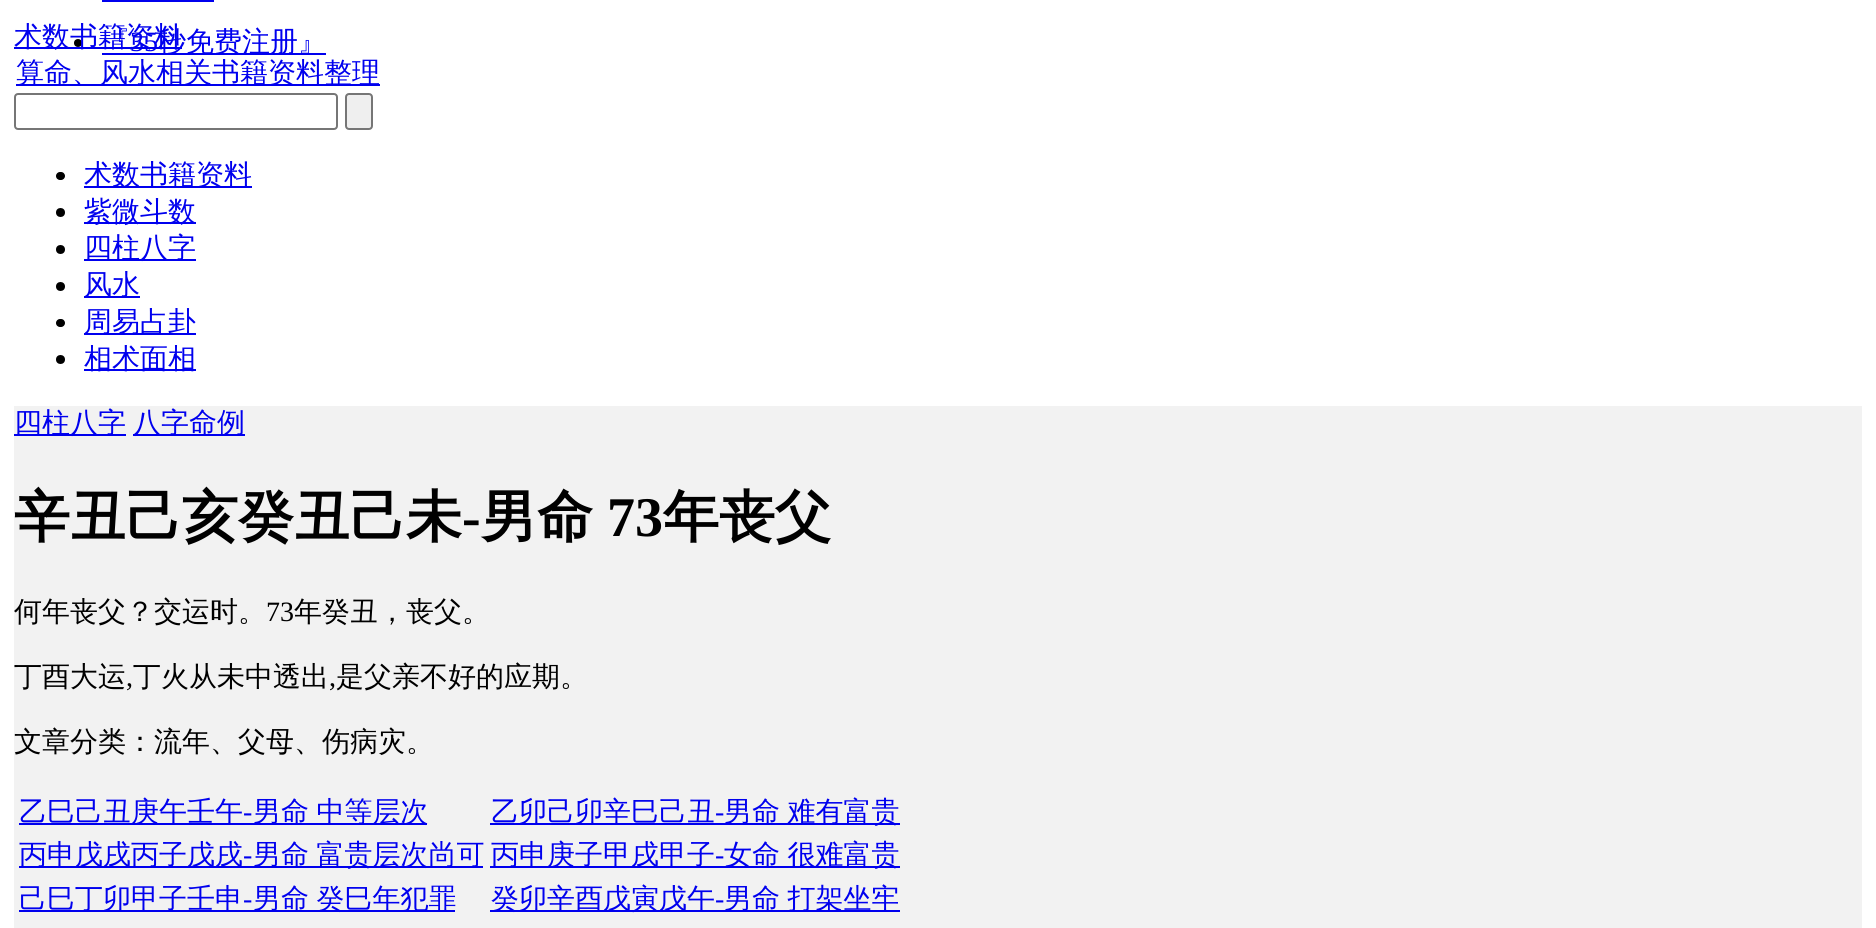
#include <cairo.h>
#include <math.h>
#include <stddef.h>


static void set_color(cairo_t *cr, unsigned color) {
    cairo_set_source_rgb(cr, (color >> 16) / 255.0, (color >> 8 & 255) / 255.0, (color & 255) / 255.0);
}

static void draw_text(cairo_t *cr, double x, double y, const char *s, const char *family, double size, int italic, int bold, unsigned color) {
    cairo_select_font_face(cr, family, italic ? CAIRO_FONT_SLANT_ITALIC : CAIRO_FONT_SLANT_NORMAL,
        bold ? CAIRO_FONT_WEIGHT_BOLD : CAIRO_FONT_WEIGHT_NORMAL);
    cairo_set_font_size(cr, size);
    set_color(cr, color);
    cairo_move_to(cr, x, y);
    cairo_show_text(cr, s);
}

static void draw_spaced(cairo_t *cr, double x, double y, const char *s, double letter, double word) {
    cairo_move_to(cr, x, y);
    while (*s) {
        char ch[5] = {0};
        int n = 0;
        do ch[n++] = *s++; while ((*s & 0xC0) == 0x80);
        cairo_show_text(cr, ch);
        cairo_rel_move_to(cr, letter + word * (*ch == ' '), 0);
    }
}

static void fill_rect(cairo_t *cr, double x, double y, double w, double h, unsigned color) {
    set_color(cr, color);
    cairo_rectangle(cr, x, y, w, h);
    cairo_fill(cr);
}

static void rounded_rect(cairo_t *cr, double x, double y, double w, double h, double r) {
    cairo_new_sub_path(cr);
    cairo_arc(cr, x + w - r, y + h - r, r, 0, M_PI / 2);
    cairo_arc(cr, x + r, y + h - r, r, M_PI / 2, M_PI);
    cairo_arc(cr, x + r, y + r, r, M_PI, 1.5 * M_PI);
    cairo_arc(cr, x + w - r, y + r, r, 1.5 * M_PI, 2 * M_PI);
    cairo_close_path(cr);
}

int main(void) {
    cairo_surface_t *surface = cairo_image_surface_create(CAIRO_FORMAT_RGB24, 1876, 928);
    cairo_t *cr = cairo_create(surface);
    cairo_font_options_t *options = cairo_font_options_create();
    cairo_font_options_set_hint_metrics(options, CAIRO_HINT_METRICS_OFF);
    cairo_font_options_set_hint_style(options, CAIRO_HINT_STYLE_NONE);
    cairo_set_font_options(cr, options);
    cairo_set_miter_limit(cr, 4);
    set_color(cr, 0xFFFFFF);
    cairo_paint(cr);
    fill_rect(cr, 14, 47, 168, 2, 0x0000EE);
    set_color(cr, 0x000000);
    cairo_arc(cr, 78, 43, 4, 0, 2 * M_PI);
    cairo_fill(cr);
    draw_text(cr, 102, 51, "『", "WenQuanYi Zen Hei Medium", 28, 0, 0, 0x0000EE);
    draw_text(cr, 130, 51, "35", "Liberation Serif", 28, 0, 0, 0x0000EE);
    fill_rect(cr, 102, 53, 224, 2, 0x0000EE);
    draw_text(cr, 158, 51, "秒免费注册』", "WenQuanYi Zen Hei Medium", 28, 0, 0, 0x0000EE);
    draw_text(cr, 14, 46, "术数书籍资料", "WenQuanYi Zen Hei Medium", 28, 0, 0, 0x0000EE);
    fill_rect(cr, 16, 84, 364, 2, 0x0000EE);
    draw_text(cr, 16, 82, "算命、风水相关书籍资料整理", "WenQuanYi Zen Hei Medium", 28, 0, 0, 0x0000EE);
    rounded_rect(cr, 15, 94, 322, 35, 3);
    set_color(cr, 0x767676);
    cairo_stroke(cr);
    set_color(cr, 0xEFEFEF);
    rounded_rect(cr, 346, 94, 26, 35, 3);
    cairo_fill_preserve(cr);
    set_color(cr, 0x767676);
    cairo_stroke(cr);
    fill_rect(cr, 102, 0, 112, 2, 0x0000EE);
    set_color(cr, 0x000000);
    rounded_rect(cr, 56, 172, 9, 8, 4);
    cairo_fill(cr);
    fill_rect(cr, 84, 186, 168, 2, 0x0000EE);
    draw_text(cr, 84, 184, "术数书籍资料", "WenQuanYi Zen Hei Medium", 28, 0, 0, 0x0000EE);
    set_color(cr, 0x000000);
    cairo_new_path(cr);
    cairo_arc(cr, 60.5, 212.5, 4.5, 0, 2 * M_PI);
    cairo_fill(cr);
    fill_rect(cr, 84, 222, 112, 2, 0x0000EE);
    draw_text(cr, 84, 221, "紫微斗数", "WenQuanYi Zen Hei Medium", 28, 0, 0, 0x0000EE);
    set_color(cr, 0x000000);
    cairo_new_path(cr);
    cairo_arc(cr, 60.5, 249.5, 4.5, 0, 2 * M_PI);
    cairo_fill(cr);
    fill_rect(cr, 84, 259, 112, 2, 0x0000EE);
    draw_text(cr, 84, 257, "四柱八字", "WenQuanYi Zen Hei Medium", 28, 0, 0, 0x0000EE);
    set_color(cr, 0x000000);
    cairo_new_path(cr);
    cairo_arc(cr, 60.5, 286.5, 4.5, 0, 2 * M_PI);
    cairo_fill(cr);
    fill_rect(cr, 84, 296, 56, 2, 0x0000EE);
    draw_text(cr, 84, 294, "风水", "WenQuanYi Zen Hei Medium", 28, 0, 0, 0x0000EE);
    set_color(cr, 0x000000);
    rounded_rect(cr, 56, 319, 9, 8, 4);
    cairo_fill(cr);
    fill_rect(cr, 84, 333, 112, 2, 0x0000EE);
    draw_text(cr, 84, 331, "周易占卦", "WenQuanYi Zen Hei Medium", 28, 0, 0, 0x0000EE);
    set_color(cr, 0x000000);
    cairo_new_path(cr);
    cairo_arc(cr, 60.5, 359.5, 4.5, 0, 2 * M_PI);
    cairo_fill(cr);
    fill_rect(cr, 84, 369, 112, 2, 0x0000EE);
    draw_text(cr, 84, 368, "相术面相", "WenQuanYi Zen Hei Medium", 28, 0, 0, 0x0000EE);
    fill_rect(cr, 14, 406, 1848, 522, 0xF2F2F2);
    fill_rect(cr, 14, 434, 112, 2, 0x0000EE);
    draw_text(cr, 14, 432, "四柱八字", "WenQuanYi Zen Hei Medium", 28, 0, 0, 0x0000EE);
    fill_rect(cr, 133, 434, 112, 2, 0x0000EE);
    draw_text(cr, 133, 432, "八字命例", "WenQuanYi Zen Hei Medium", 28, 0, 0, 0x0000EE);
    draw_text(cr, 14, 536, "辛丑己亥癸丑己未", "WenQuanYi Zen Hei", 56, 0, 1, 0x000000);
    draw_text(cr, 462, 536, "-", "Liberation Serif", 56, 0, 1, 0x000000);
    draw_text(cr, 481, 536, "男命", "WenQuanYi Zen Hei", 56, 0, 1, 0x000000);
    draw_text(cr, 607, 536, "73", "Liberation Serif", 56, 0, 1, 0x000000);
    draw_text(cr, 663, 536, "年丧父", "WenQuanYi Zen Hei", 56, 0, 1, 0x000000);
    draw_text(cr, 14, 621, "何年丧父？交运时。", "WenQuanYi Zen Hei Medium", 28, 0, 0, 0x000000);
    draw_text(cr, 266, 621, "73", "Liberation Serif", 28, 0, 0, 0x000000);
    draw_text(cr, 294, 621, "年癸丑，丧父。", "WenQuanYi Zen Hei Medium", 28, 0, 0, 0x000000);
    draw_text(cr, 14, 686, "丁酉大运", "WenQuanYi Zen Hei Medium", 28, 0, 0, 0x000000);
    draw_text(cr, 126, 686, ",", "Liberation Serif", 28, 0, 0, 0x000000);
    draw_text(cr, 133, 686, "丁火从未中透出", "WenQuanYi Zen Hei Medium", 28, 0, 0, 0x000000);
    draw_text(cr, 329, 686, ",", "Liberation Serif", 28, 0, 0, 0x000000);
    draw_text(cr, 336, 686, "是父亲不好的应期。", "WenQuanYi Zen Hei Medium", 28, 0, 0, 0x000000);
    draw_text(cr, 14, 751, "文章分类：流年、父母、伤病灾。", "WenQuanYi Zen Hei Medium", 28, 0, 0, 0x000000);
    fill_rect(cr, 19, 823, 408, 2, 0x0000EE);
    draw_text(cr, 19, 821, "乙巳己丑庚午壬午", "WenQuanYi Zen Hei Medium", 28, 0, 0, 0x0000EE);
    draw_text(cr, 243, 821, "-", "Liberation Serif", 28, 0, 0, 0x0000EE);
    cairo_select_font_face(cr, "WenQuanYi Zen Hei Medium", CAIRO_FONT_SLANT_NORMAL, CAIRO_FONT_WEIGHT_NORMAL);
    draw_spaced(cr, 253, 821, "男命 中等层次", 0, -1);
    fill_rect(cr, 490, 823, 410, 2, 0x0000EE);
    draw_text(cr, 491, 821, "乙卯己卯辛巳己丑", "WenQuanYi Zen Hei Medium", 28, 0, 0, 0x0000EE);
    draw_text(cr, 715, 821, "-", "Liberation Serif", 28, 0, 0, 0x0000EE);
    cairo_select_font_face(cr, "WenQuanYi Zen Hei Medium", CAIRO_FONT_SLANT_NORMAL, CAIRO_FONT_WEIGHT_NORMAL);
    draw_spaced(cr, 724, 821, "男命 难有富贵", 0, -1);
    fill_rect(cr, 19, 866, 464, 2, 0x0000EE);
    draw_text(cr, 19, 864, "丙申戊戌丙子戊戌", "WenQuanYi Zen Hei Medium", 28, 0, 0, 0x0000EE);
    draw_text(cr, 243, 864, "-", "Liberation Serif", 28, 0, 0, 0x0000EE);
    cairo_select_font_face(cr, "WenQuanYi Zen Hei Medium", CAIRO_FONT_SLANT_NORMAL, CAIRO_FONT_WEIGHT_NORMAL);
    draw_spaced(cr, 253, 864, "男命 富贵层次尚可", 0, -1);
    fill_rect(cr, 490, 866, 410, 2, 0x0000EE);
    draw_text(cr, 491, 864, "丙申庚子甲戌甲子", "WenQuanYi Zen Hei Medium", 28, 0, 0, 0x0000EE);
    draw_text(cr, 715, 864, "-", "Liberation Serif", 28, 0, 0, 0x0000EE);
    cairo_select_font_face(cr, "WenQuanYi Zen Hei Medium", CAIRO_FONT_SLANT_NORMAL, CAIRO_FONT_WEIGHT_NORMAL);
    draw_spaced(cr, 724, 864, "女命 很难富贵", 0, -1);
    fill_rect(cr, 19, 910, 436, 2, 0x0000EE);
    draw_text(cr, 19, 908, "己巳丁卯甲子壬申", "WenQuanYi Zen Hei Medium", 28, 0, 0, 0x0000EE);
    draw_text(cr, 243, 908, "-", "Liberation Serif", 28, 0, 0, 0x0000EE);
    cairo_select_font_face(cr, "WenQuanYi Zen Hei Medium", CAIRO_FONT_SLANT_NORMAL, CAIRO_FONT_WEIGHT_NORMAL);
    draw_spaced(cr, 253, 908, "男命 癸巳年犯罪", 0, -1);
    fill_rect(cr, 490, 910, 410, 2, 0x0000EE);
    draw_text(cr, 491, 908, "癸卯辛酉戊寅戊午", "WenQuanYi Zen Hei Medium", 28, 0, 0, 0x0000EE);
    draw_text(cr, 715, 908, "-", "Liberation Serif", 28, 0, 0, 0x0000EE);
    cairo_select_font_face(cr, "WenQuanYi Zen Hei Medium", CAIRO_FONT_SLANT_NORMAL, CAIRO_FONT_WEIGHT_NORMAL);
    draw_spaced(cr, 724, 908, "男命 打架坐牢", 0, -1);
    cairo_surface_write_to_png(surface, "output.png");
    cairo_font_options_destroy(options);
    cairo_destroy(cr);
    cairo_surface_destroy(surface);
    return 0;
}
